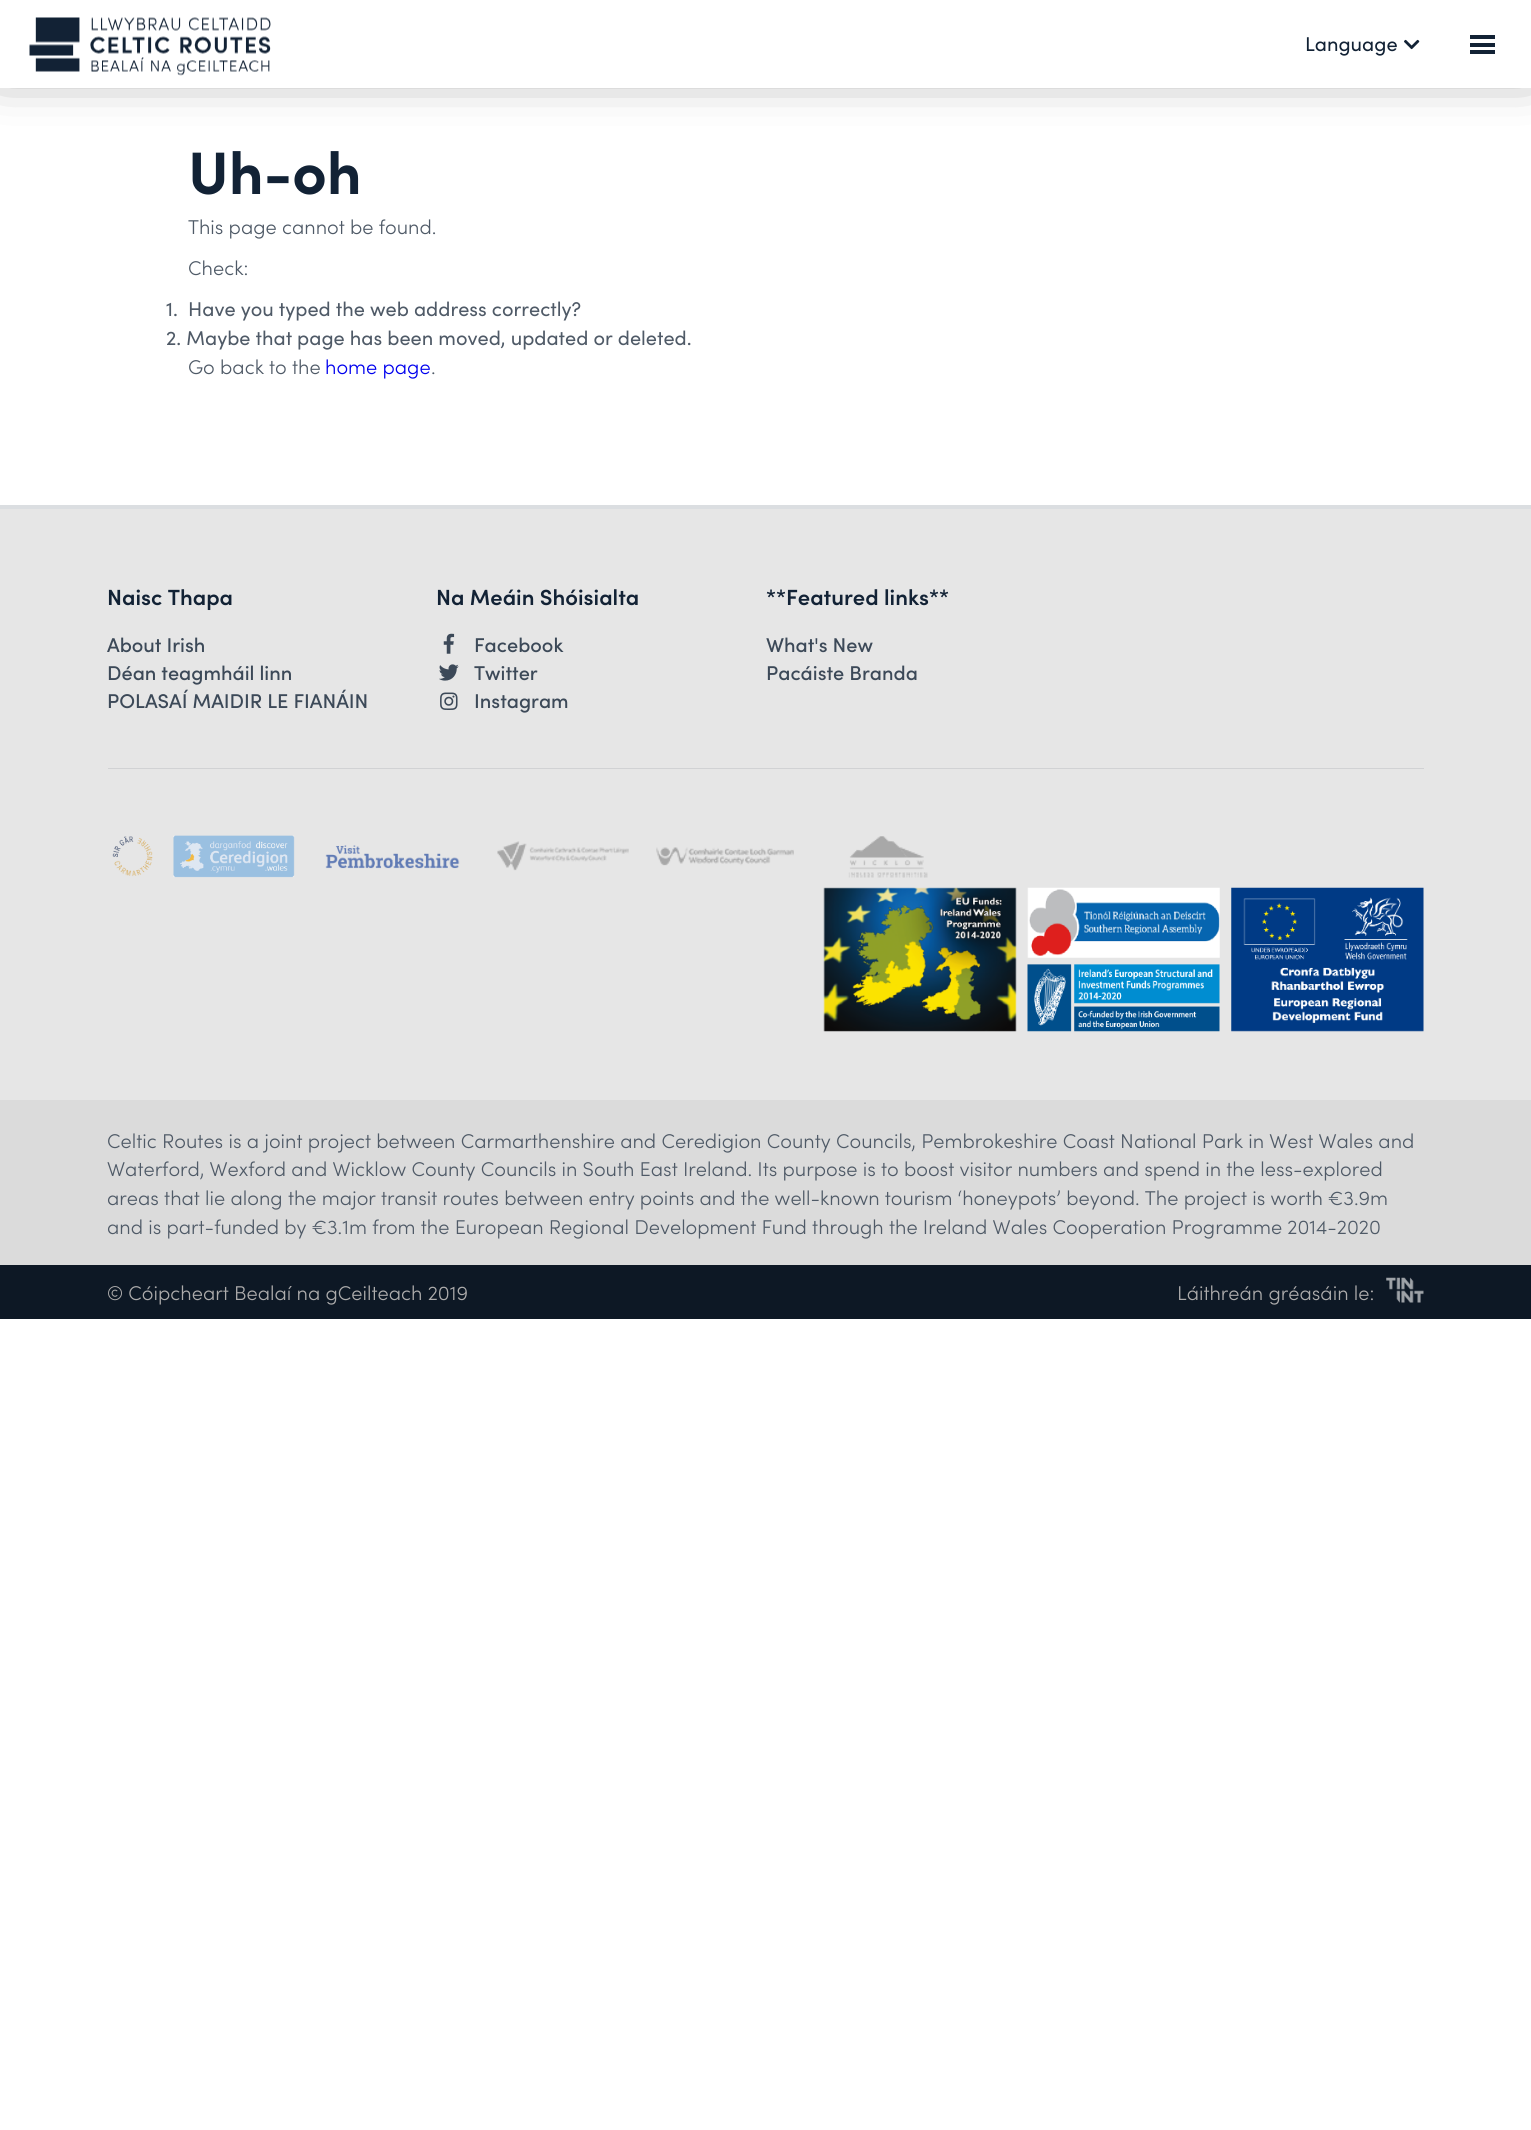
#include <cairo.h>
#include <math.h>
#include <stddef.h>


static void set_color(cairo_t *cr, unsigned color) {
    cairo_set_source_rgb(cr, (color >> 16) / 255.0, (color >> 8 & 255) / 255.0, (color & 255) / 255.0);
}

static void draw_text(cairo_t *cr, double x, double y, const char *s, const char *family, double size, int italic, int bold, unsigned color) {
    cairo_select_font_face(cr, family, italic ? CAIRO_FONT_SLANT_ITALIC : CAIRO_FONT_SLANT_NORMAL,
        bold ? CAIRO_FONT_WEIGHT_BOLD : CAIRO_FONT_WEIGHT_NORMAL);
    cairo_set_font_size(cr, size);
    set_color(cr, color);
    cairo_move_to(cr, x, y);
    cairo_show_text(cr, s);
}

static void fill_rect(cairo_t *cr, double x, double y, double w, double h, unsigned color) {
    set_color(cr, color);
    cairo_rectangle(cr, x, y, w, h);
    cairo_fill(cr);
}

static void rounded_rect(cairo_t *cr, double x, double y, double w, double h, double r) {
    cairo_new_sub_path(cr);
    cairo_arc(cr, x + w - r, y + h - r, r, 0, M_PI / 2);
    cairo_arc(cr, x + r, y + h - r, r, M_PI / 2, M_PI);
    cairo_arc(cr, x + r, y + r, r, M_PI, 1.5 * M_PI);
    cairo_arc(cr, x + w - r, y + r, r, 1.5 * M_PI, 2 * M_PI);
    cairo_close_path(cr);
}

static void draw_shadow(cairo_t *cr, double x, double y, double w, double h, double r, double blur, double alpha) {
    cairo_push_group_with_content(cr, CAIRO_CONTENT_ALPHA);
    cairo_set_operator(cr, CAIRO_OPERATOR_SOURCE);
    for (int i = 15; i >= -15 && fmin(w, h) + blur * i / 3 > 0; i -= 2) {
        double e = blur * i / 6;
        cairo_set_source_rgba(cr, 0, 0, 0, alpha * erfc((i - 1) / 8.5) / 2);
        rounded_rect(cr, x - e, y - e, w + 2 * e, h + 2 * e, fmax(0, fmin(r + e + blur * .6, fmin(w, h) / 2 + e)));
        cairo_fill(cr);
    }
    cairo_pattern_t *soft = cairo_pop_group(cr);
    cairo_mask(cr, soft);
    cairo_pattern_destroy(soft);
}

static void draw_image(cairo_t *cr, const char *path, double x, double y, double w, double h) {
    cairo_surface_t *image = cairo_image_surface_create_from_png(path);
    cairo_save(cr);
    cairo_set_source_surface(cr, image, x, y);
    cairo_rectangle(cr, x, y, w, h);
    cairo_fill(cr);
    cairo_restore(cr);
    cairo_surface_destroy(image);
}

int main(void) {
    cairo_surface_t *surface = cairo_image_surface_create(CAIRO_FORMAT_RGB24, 1531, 2130);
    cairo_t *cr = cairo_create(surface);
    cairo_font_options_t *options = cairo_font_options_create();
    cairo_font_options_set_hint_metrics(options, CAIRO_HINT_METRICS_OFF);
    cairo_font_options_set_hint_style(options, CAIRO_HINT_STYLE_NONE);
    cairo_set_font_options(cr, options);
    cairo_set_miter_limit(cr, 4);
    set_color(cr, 0xFFFFFF);
    cairo_paint(cr);
    set_color(cr, 0x000000);
    draw_shadow(cr, 0, -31, 1531, 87, 0, 28, 1);
    fill_rect(cr, 0, 0, 1531, 88, 0xFFFFFF);
    draw_image(cr, "assets/img1.png", 29, 17, 242, 59);
    draw_text(cr, 1305, 51, "Language", "Sofia", 20, 0, 0, 0x122235);
    draw_image(cr, "assets/img2.png", 1404, 39, 16, 11);
    fill_rect(cr, 1470, 43, 25, 4, 0x122235);
    fill_rect(cr, 1470, 35, 25, 4, 0x122235);
    fill_rect(cr, 1470, 50, 25, 4, 0x122235);
    draw_text(cr, 188, 194, "Uh-oh", "Sofia", 60, 0, 1, 0x122235);
    draw_text(cr, 188, 234, "This page cannot be found.", "Sofia Light", 20, 0, 0, 0x4F5A67);
    draw_text(cr, 188, 275, "Check:", "Sofia Light", 20, 0, 0, 0x4F5A67);
    draw_text(cr, 166, 316, "1.", "Sofia", 20, 0, 0, 0x4F5A67);
    draw_text(cr, 188, 316, "Have you typed the web address correctly?", "Sofia", 20, 0, 0, 0x4F5A67);
    draw_text(cr, 166, 345, "2. Maybe that page has been moved, updated or deleted.", "Sofia", 20, 0, 0, 0x4F5A67);
    draw_text(cr, 188, 374, "Go back to the", "Sofia Light", 20, 0, 0, 0x4F5A67);
    draw_text(cr, 325, 374, "home page", "Sofia Light", 20, 0, 0, 0x0000EE);
    draw_text(cr, 431, 374, ".", "Sofia Light", 20, 0, 0, 0x4F5A67);
    fill_rect(cr, 0, 505, 1531, 4, 0xDBDEE1);
    fill_rect(cr, 0, 509, 1531, 591, 0xE6E6E6);
    draw_text(cr, 107, 605, "Naisc Thapa", "Sofia SemiBold", 22, 0, 0, 0x122235);
    draw_text(cr, 107, 652, "About Irish", "Sofia Medium", 20, 0, 0, 0x3C4958);
    draw_text(cr, 107, 680, "Déan teagmháil linn", "Sofia Medium", 20, 0, 0, 0x3C4958);
    draw_text(cr, 107, 708, "POLASAÍ MAIDIR LE FIANÁIN", "Sofia Medium", 20, 0, 0, 0x3C4958);
    draw_text(cr, 436, 605, "Na Meáin Shóisialta", "Sofia SemiBold", 22, 0, 0, 0x122235);
    draw_image(cr, "assets/img3.png", 443, 633, 12, 21);
    draw_text(cr, 474, 652, "Facebook", "Sofia Medium", 20, 0, 0, 0x3C4958);
    draw_image(cr, "assets/img4.png", 439, 664, 20, 17);
    draw_text(cr, 474, 680, "Twitter", "Sofia Medium", 20, 0, 0, 0x3C4958);
    draw_image(cr, "assets/img5.png", 440, 692, 18, 18);
    draw_text(cr, 474, 708, "Instagram", "Sofia Medium", 20, 0, 0, 0x3C4958);
    draw_text(cr, 766, 605, "**Featured links**", "Sofia SemiBold", 22, 0, 0, 0x122235);
    draw_text(cr, 766, 652, "What's New", "Sofia Medium", 20, 0, 0, 0x3C4958);
    draw_text(cr, 766, 680, "Pacáiste Branda", "Sofia Medium", 20, 0, 0, 0x3C4958);
    fill_rect(cr, 108, 768, 1316, 1, 0xD1D2D4);
    draw_image(cr, "assets/img6.png", 112, 836, 41, 41);
    draw_image(cr, "assets/img7.png", 173, 835, 122, 43);
    draw_image(cr, "assets/img8.png", 325, 845, 135, 24);
    draw_image(cr, "assets/img9.png", 497, 841, 132, 30);
    draw_image(cr, "assets/img10.png", 656, 847, 138, 19);
    draw_image(cr, "assets/img11.png", 848, 836, 80, 42);
    draw_image(cr, "assets/img12.png", 823, 887, 194, 145);
    draw_image(cr, "assets/img13.png", 1027, 887, 193, 145);
    draw_image(cr, "assets/img14.png", 1231, 887, 193, 145);
    fill_rect(cr, 0, 1100, 1531, 165, 0xDBDBDB);
    draw_text(cr, 107, 1148, "Celtic Routes is a joint project between Carmarthenshire and Ceredigion County Councils, Pembrokeshire Coast National Park in West Wales and", "Sofia Light", 20, 0, 0, 0x4F5A67);
    draw_text(cr, 107, 1176, "Waterford, Wexford and Wicklow County Councils in South East Ireland. Its purpose is to boost visitor numbers and spend in the less-explored", "Sofia Light", 20, 0, 0, 0x4F5A67);
    draw_text(cr, 107, 1205, "areas that lie along the major transit routes between entry points and the well-known tourism ‘honeypots’ beyond. The project is worth €3.9m", "Sofia Light", 20, 0, 0, 0x4F5A67);
    draw_text(cr, 107, 1234, "and is part-funded by €3.1m from the European Regional Development Fund through the Ireland Wales Cooperation Programme 2014-2020", "Sofia Light", 20, 0, 0, 0x4F5A67);
    fill_rect(cr, 0, 1265, 1531, 54, 0x0D1825);
    draw_text(cr, 107, 1300, "© Cóipcheart Bealaí na gCeilteach 2019", "Sofia Light", 20, 0, 0, 0xADACAC);
    draw_text(cr, 1177, 1300, "Láithreán gréasáin le:", "Sofia Light", 20, 0, 0, 0xADACAC);
    draw_image(cr, "assets/img15.png", 1386, 1277, 38, 26);
    cairo_surface_write_to_png(surface, "output.png");
    cairo_font_options_destroy(options);
    cairo_destroy(cr);
    cairo_surface_destroy(surface);
    return 0;
}
